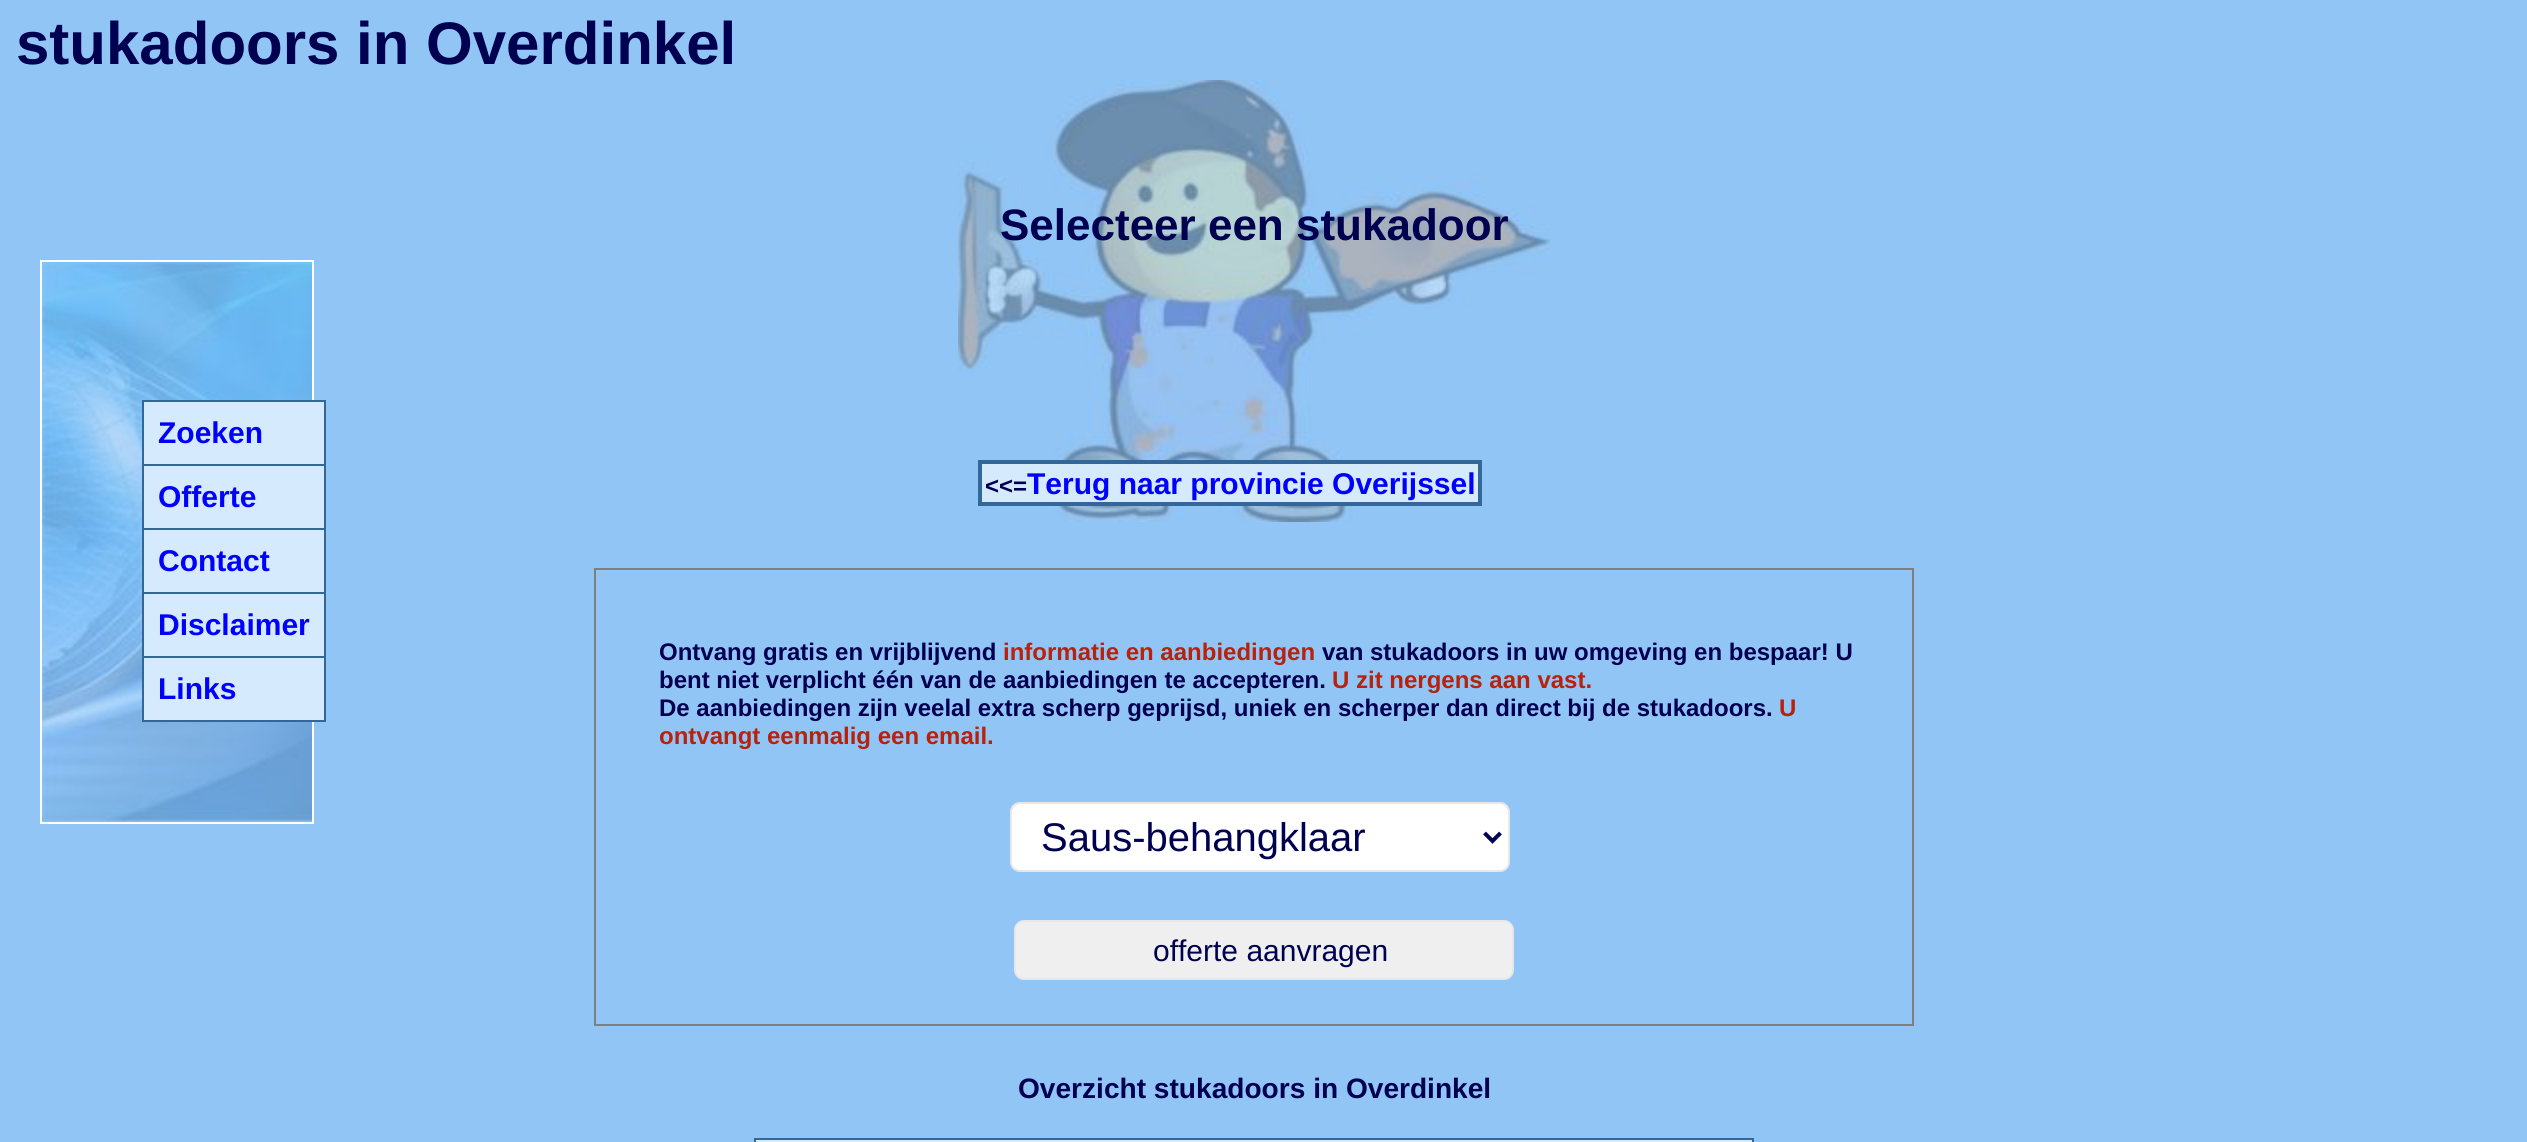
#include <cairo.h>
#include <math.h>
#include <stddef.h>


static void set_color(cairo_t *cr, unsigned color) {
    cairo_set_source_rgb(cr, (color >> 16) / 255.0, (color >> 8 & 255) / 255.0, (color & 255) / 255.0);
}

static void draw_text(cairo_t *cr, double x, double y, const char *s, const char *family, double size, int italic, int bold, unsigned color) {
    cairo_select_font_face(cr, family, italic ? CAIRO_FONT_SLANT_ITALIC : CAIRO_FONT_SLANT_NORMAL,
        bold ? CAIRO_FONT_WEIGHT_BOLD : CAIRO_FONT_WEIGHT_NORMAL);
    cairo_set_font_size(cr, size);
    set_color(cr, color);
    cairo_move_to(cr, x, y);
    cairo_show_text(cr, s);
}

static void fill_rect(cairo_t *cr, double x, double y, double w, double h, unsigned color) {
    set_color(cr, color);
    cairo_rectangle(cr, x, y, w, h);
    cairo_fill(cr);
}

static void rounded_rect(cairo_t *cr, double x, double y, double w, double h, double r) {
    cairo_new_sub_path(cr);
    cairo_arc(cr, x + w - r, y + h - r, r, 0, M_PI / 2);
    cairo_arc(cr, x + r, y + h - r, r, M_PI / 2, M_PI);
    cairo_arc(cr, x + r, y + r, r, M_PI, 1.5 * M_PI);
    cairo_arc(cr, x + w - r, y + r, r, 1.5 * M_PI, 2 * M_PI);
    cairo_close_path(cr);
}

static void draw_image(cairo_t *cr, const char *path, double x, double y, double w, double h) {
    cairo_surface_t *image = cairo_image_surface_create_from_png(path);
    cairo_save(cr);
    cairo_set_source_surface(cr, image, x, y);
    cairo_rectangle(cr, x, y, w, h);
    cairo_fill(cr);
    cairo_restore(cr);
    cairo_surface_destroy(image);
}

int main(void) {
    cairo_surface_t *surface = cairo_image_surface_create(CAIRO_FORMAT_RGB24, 2527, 1142);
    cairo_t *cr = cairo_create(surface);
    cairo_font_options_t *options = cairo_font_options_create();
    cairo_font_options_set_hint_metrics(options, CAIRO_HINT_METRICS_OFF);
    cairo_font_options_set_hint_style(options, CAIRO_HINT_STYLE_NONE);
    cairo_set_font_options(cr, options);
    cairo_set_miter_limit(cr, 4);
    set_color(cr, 0x91C5F5);
    cairo_paint(cr);
    draw_text(cr, 16, 64, "stukadoors in Overdinkel", "Liberation Sans", 60, 0, 1, 0x000051);
    draw_image(cr, "assets/img1.png", 958, 80, 592, 442);
    draw_text(cr, 1000, 240, "Selecteer een stukadoor", "Liberation Sans", 44, 0, 1, 0x000051);
    cairo_rectangle(cr, 41, 261, 272, 562);
    set_color(cr, 0xFFFFFF);
    cairo_stroke(cr);
    draw_image(cr, "assets/img2.png", 42, 262, 270, 560);
    fill_rect(cr, 142, 400, 184, 322, 0x336699);
    fill_rect(cr, 144, 402, 180, 62, 0xD5EBFD);
    draw_text(cr, 158, 443, "Zoeken", "Liberation Sans", 30, 0, 1, 0x0000FF);
    fill_rect(cr, 144, 466, 180, 62, 0xD5EBFD);
    draw_text(cr, 158, 507, "Offerte", "Liberation Sans", 30, 0, 1, 0x0000FF);
    fill_rect(cr, 144, 530, 180, 62, 0xD5EBFD);
    draw_text(cr, 158, 571, "Contact", "Liberation Sans", 30, 0, 1, 0x0000FF);
    fill_rect(cr, 144, 594, 180, 62, 0xD5EBFD);
    draw_text(cr, 158, 635, "Disclaimer", "Liberation Sans", 30, 0, 1, 0x0000FF);
    fill_rect(cr, 144, 658, 180, 62, 0xD5EBFD);
    draw_text(cr, 158, 699, "Links", "Liberation Sans", 30, 0, 1, 0x0000FF);
    fill_rect(cr, 978, 460, 504, 46, 0x336699);
    fill_rect(cr, 982, 464, 496, 38, 0xD5EBFD);
    draw_text(cr, 985, 494, "<<=", "Liberation Sans", 24, 0, 1, 0x000051);
    draw_text(cr, 1027, 494, "Terug naar provincie Overijssel", "Liberation Sans", 30, 0, 1, 0x0000FF);
    cairo_rectangle(cr, 595, 569, 1318, 456);
    set_color(cr, 0x7F7F7F);
    cairo_stroke(cr);
    draw_text(cr, 659, 660, "Ontvang gratis en vrijblijvend", "Liberation Sans", 24, 0, 1, 0x000051);
    draw_text(cr, 1003, 660, "informatie en aanbiedingen", "Liberation Sans", 24, 0, 1, 0xB7220C);
    draw_text(cr, 1322, 660, "van stukadoors in uw omgeving en bespaar! U", "Liberation Sans", 24, 0, 1, 0x000051);
    draw_text(cr, 659, 688, "bent niet verplicht één van de aanbiedingen te accepteren.", "Liberation Sans", 24, 0, 1, 0x000051);
    draw_text(cr, 1332, 688, "U zit nergens aan vast.", "Liberation Sans", 24, 0, 1, 0xB7220C);
    draw_text(cr, 659, 716, "De aanbiedingen zijn veelal extra scherp geprijsd, uniek en scherper dan direct bij de stukadoors.", "Liberation Sans", 24, 0, 1, 0x000051);
    draw_text(cr, 1779, 716, "U", "Liberation Sans", 24, 0, 1, 0xB7220C);
    draw_text(cr, 659, 744, "ontvangt eenmalig een email.", "Liberation Sans", 24, 0, 1, 0xB7220C);
    set_color(cr, 0xFFFFFF);
    rounded_rect(cr, 1011, 803, 498, 68, 9);
    cairo_fill_preserve(cr);
    set_color(cr, 0xE7E7E7);
    cairo_stroke(cr);
    cairo_new_path(cr);
    cairo_move_to(cr, 1484.5, 833);
    cairo_line_to(cr, 1492.5, 841);
    cairo_line_to(cr, 1500.5, 833);
    set_color(cr, 0x000051);
    cairo_set_line_width(cr, 4);
    cairo_stroke(cr);
    draw_text(cr, 1041, 851, "Saus-behangklaar", "Liberation Sans", 40, 0, 0, 0x000051);
    set_color(cr, 0xEFEFEF);
    rounded_rect(cr, 1015, 921, 498, 58, 9);
    cairo_fill_preserve(cr);
    set_color(cr, 0xE7E7E7);
    cairo_set_line_width(cr, 2);
    cairo_stroke(cr);
    draw_text(cr, 1153, 961, "offerte aanvragen", "Liberation Sans", 30, 0, 0, 0x000051);
    draw_text(cr, 1018, 1098, "Overzicht stukadoors in Overdinkel", "Liberation Sans", 28.1, 0, 1, 0x000051);
    fill_rect(cr, 754, 1138, 1000, 4, 0x336699);
    fill_rect(cr, 756, 1140, 996, 2, 0xD5EBFD);
    cairo_surface_write_to_png(surface, "output.png");
    cairo_font_options_destroy(options);
    cairo_destroy(cr);
    cairo_surface_destroy(surface);
    return 0;
}
